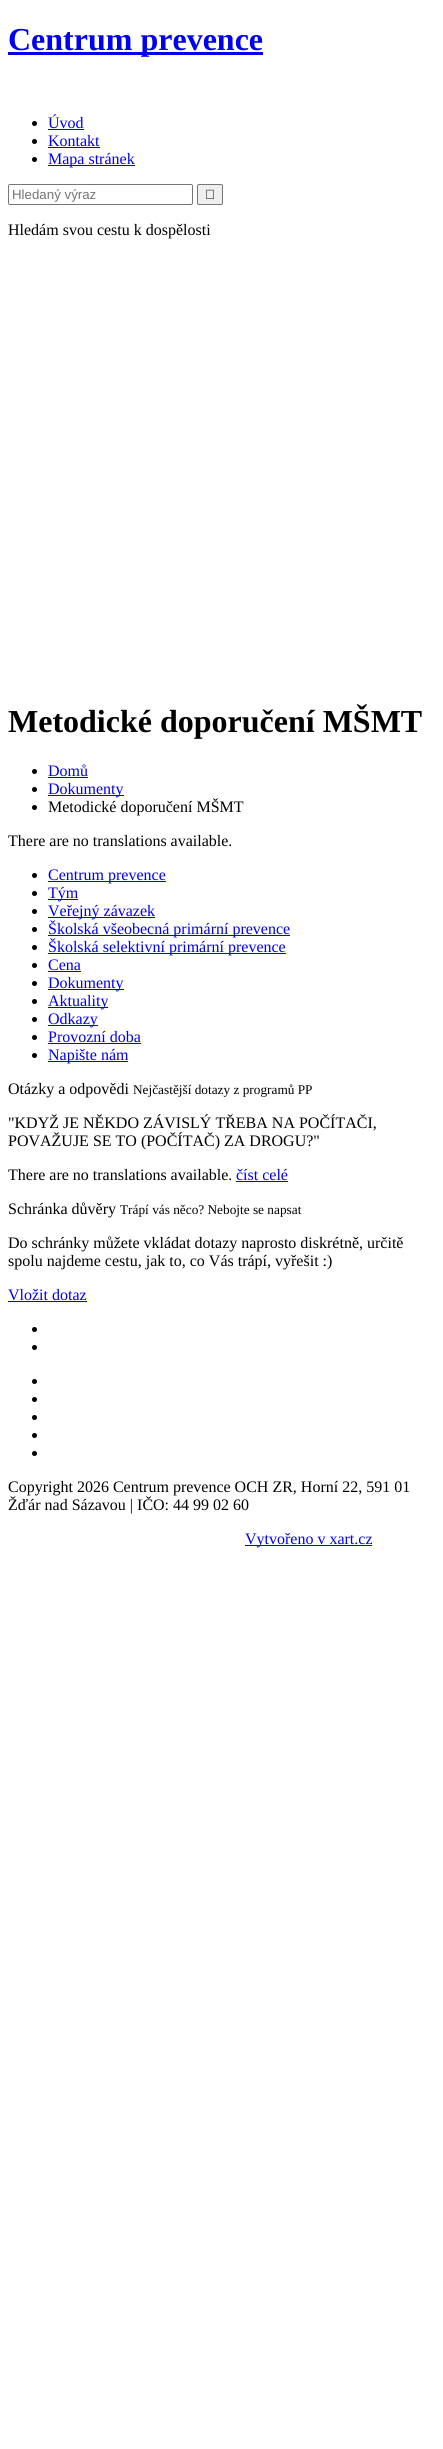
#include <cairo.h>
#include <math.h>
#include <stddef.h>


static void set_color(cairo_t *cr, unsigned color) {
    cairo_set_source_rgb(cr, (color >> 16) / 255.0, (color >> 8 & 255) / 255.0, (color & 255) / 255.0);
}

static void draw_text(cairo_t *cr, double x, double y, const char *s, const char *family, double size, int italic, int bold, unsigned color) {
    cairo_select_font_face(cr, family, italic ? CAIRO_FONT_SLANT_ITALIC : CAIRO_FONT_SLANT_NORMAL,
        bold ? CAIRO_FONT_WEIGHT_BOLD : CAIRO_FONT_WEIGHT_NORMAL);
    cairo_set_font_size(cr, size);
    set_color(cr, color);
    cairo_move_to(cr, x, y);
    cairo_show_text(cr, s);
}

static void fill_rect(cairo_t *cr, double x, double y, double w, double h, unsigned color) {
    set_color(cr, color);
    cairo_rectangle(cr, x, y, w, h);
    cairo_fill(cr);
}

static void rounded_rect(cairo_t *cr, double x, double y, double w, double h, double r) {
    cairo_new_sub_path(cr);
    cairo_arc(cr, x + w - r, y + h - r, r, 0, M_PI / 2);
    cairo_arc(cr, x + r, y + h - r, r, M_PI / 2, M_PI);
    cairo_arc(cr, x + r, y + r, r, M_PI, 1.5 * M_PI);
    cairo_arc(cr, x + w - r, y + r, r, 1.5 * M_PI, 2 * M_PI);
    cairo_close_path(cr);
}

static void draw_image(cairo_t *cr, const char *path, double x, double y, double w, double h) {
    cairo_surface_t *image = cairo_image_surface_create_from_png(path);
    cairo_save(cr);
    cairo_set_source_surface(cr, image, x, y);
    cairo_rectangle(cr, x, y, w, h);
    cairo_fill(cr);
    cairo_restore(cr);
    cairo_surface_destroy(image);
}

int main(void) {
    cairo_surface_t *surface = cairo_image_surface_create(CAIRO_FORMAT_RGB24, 443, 2449);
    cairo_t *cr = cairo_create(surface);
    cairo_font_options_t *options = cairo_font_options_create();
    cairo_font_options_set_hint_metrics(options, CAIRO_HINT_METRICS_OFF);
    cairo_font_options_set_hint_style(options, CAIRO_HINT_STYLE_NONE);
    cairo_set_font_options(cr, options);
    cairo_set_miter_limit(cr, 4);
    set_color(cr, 0xFFFFFF);
    cairo_paint(cr);
    fill_rect(cr, 8, 52, 255, 3, 0x0000EE);
    draw_text(cr, 8, 50, "Centrum prevence", "Liberation Serif", 32, 0, 1, 0x0000EE);
    set_color(cr, 0x000000);
    cairo_new_path(cr);
    cairo_arc(cr, 34.5, 123.5, 2.5, 0, 2 * M_PI);
    cairo_fill(cr);
    draw_text(cr, 48, 128, "Úvod", "Liberation Serif", 16, 0, 0, 0x0000EE);
    fill_rect(cr, 48, 129, 36, 1, 0x0000EE);
    set_color(cr, 0x000000);
    cairo_new_path(cr);
    cairo_arc(cr, 34.5, 141.5, 2.5, 0, 2 * M_PI);
    cairo_fill(cr);
    draw_text(cr, 48, 146, "Kontakt", "Liberation Serif", 16, 0, 0, 0x0000EE);
    fill_rect(cr, 48, 147, 52, 1, 0x0000EE);
    set_color(cr, 0x000000);
    cairo_new_path(cr);
    cairo_arc(cr, 34.5, 159.5, 2.5, 0, 2 * M_PI);
    cairo_fill(cr);
    fill_rect(cr, 48, 165, 87, 1, 0x0000EE);
    draw_text(cr, 48, 164, "Mapa stránek", "Liberation Serif", 16, 0, 0, 0x0000EE);
    rounded_rect(cr, 8.5, 184.5, 184, 20, 1.5);
    set_color(cr, 0x767676);
    cairo_set_line_width(cr, 1);
    cairo_stroke(cr);
    draw_text(cr, 12, 199, "Hledaný výraz", "Liberation Sans", 13.3, 0, 0, 0x757575);
    set_color(cr, 0xEFEFEF);
    rounded_rect(cr, 197.5, 184.5, 25, 20, 1.5);
    cairo_fill_preserve(cr);
    set_color(cr, 0x767676);
    cairo_stroke(cr);
    draw_image(cr, "assets/img1.png", 206, 189, 8, 10);
    draw_text(cr, 8, 235, "Hledám svou cestu k dospělosti", "Liberation Serif", 16, 0, 0, 0x000000);
    draw_text(cr, 8, 732, "Metodické doporučení MŠMT", "Liberation Serif", 32, 0, 1, 0x000000);
    cairo_new_path(cr);
    cairo_arc(cr, 34.5, 771.5, 2.5, 0, 2 * M_PI);
    cairo_fill(cr);
    draw_text(cr, 48, 776, "Domů", "Liberation Serif", 16, 0, 0, 0x0000EE);
    fill_rect(cr, 48, 777, 40, 1, 0x0000EE);
    set_color(cr, 0x000000);
    cairo_new_path(cr);
    cairo_arc(cr, 34.5, 789.5, 2.5, 0, 2 * M_PI);
    cairo_fill(cr);
    fill_rect(cr, 48, 795, 76, 1, 0x0000EE);
    draw_text(cr, 48, 794, "Dokumenty", "Liberation Serif", 16, 0, 0, 0x0000EE);
    set_color(cr, 0x000000);
    cairo_new_path(cr);
    cairo_arc(cr, 34.5, 807.5, 2.5, 0, 2 * M_PI);
    cairo_fill(cr);
    draw_text(cr, 48, 812, "Metodické doporučení MŠMT", "Liberation Serif", 16, 0, 0, 0x000000);
    draw_text(cr, 8, 846, "There are no translations available.", "Liberation Serif", 16, 0, 0, 0x000000);
    cairo_new_path(cr);
    cairo_arc(cr, 34.5, 875.5, 2.5, 0, 2 * M_PI);
    cairo_fill(cr);
    fill_rect(cr, 48, 881, 118, 1, 0x0000EE);
    draw_text(cr, 48, 880, "Centrum prevence", "Liberation Serif", 16, 0, 0, 0x0000EE);
    set_color(cr, 0x000000);
    cairo_new_path(cr);
    cairo_arc(cr, 34.5, 893.5, 2.5, 0, 2 * M_PI);
    cairo_fill(cr);
    fill_rect(cr, 48, 899, 30, 1, 0x0000EE);
    draw_text(cr, 48, 898, "Tým", "Liberation Serif", 16, 0, 0, 0x0000EE);
    set_color(cr, 0x000000);
    cairo_new_path(cr);
    cairo_arc(cr, 34.5, 911.5, 2.5, 0, 2 * M_PI);
    cairo_fill(cr);
    fill_rect(cr, 48, 917, 107, 1, 0x0000EE);
    draw_text(cr, 48, 916, "Veřejný závazek", "Liberation Serif", 16, 0, 0, 0x0000EE);
    set_color(cr, 0x000000);
    cairo_new_path(cr);
    cairo_arc(cr, 34.5, 929.5, 2.5, 0, 2 * M_PI);
    cairo_fill(cr);
    fill_rect(cr, 48, 935, 242, 1, 0x0000EE);
    draw_text(cr, 48, 934, "Školská všeobecná primární prevence", "Liberation Serif", 16, 0, 0, 0x0000EE);
    set_color(cr, 0x000000);
    cairo_new_path(cr);
    cairo_arc(cr, 34.5, 947.5, 2.5, 0, 2 * M_PI);
    cairo_fill(cr);
    fill_rect(cr, 48, 953, 238, 1, 0x0000EE);
    draw_text(cr, 48, 952, "Školská selektivní primární prevence", "Liberation Serif", 16, 0, 0, 0x0000EE);
    set_color(cr, 0x000000);
    cairo_new_path(cr);
    cairo_arc(cr, 34.5, 965.5, 2.5, 0, 2 * M_PI);
    cairo_fill(cr);
    draw_text(cr, 48, 970, "Cena", "Liberation Serif", 16, 0, 0, 0x0000EE);
    fill_rect(cr, 48, 971, 33, 1, 0x0000EE);
    set_color(cr, 0x000000);
    cairo_new_path(cr);
    cairo_arc(cr, 34.5, 983.5, 2.5, 0, 2 * M_PI);
    cairo_fill(cr);
    fill_rect(cr, 48, 989, 76, 1, 0x0000EE);
    draw_text(cr, 48, 988, "Dokumenty", "Liberation Serif", 16, 0, 0, 0x0000EE);
    set_color(cr, 0x000000);
    cairo_new_path(cr);
    cairo_arc(cr, 34.5, 1001.5, 2.5, 0, 2 * M_PI);
    cairo_fill(cr);
    fill_rect(cr, 48, 1007, 60, 1, 0x0000EE);
    draw_text(cr, 48, 1006, "Aktuality", "Liberation Serif", 16, 0, 0, 0x0000EE);
    set_color(cr, 0x000000);
    cairo_new_path(cr);
    cairo_arc(cr, 34.5, 1019.5, 2.5, 0, 2 * M_PI);
    cairo_fill(cr);
    fill_rect(cr, 48, 1025, 50, 1, 0x0000EE);
    draw_text(cr, 48, 1024, "Odkazy", "Liberation Serif", 16, 0, 0, 0x0000EE);
    set_color(cr, 0x000000);
    cairo_new_path(cr);
    cairo_arc(cr, 34.5, 1037.5, 2.5, 0, 2 * M_PI);
    cairo_fill(cr);
    draw_text(cr, 48, 1042, "Provozní doba", "Liberation Serif", 16, 0, 0, 0x0000EE);
    fill_rect(cr, 48, 1043, 93, 1, 0x0000EE);
    set_color(cr, 0x000000);
    cairo_new_path(cr);
    cairo_arc(cr, 34.5, 1055.5, 2.5, 0, 2 * M_PI);
    cairo_fill(cr);
    fill_rect(cr, 48, 1061, 80, 1, 0x0000EE);
    draw_text(cr, 48, 1060, "Napište nám", "Liberation Serif", 16, 0, 0, 0x0000EE);
    draw_text(cr, 8, 1094, "Otázky a odpovědi", "Liberation Serif", 16, 0, 0, 0x000000);
    draw_text(cr, 133, 1094, "Nejčastější dotazy z programů PP", "Liberation Serif", 13.3, 0, 0, 0x000000);
    draw_text(cr, 8, 1128, "\"KDYŽ JE NĚKDO ZÁVISLÝ TŘEBA NA POČÍTAČI,", "Liberation Serif", 16, 0, 0, 0x000000);
    draw_text(cr, 8, 1146, "POVAŽUJE SE TO (POČÍTAČ) ZA DROGU?\"", "Liberation Serif", 16, 0, 0, 0x000000);
    draw_text(cr, 8, 1180, "There are no translations available.", "Liberation Serif", 16, 0, 0, 0x000000);
    draw_text(cr, 236, 1180, "číst celé", "Liberation Serif", 16, 0, 0, 0x0000EE);
    fill_rect(cr, 236, 1181, 52, 1, 0x0000EE);
    draw_text(cr, 8, 1214, "Schránka důvěry", "Liberation Serif", 16, 0, 0, 0x000000);
    draw_text(cr, 120, 1214, "Trápí vás něco? Nebojte se napsat", "Liberation Serif", 13.3, 0, 0, 0x000000);
    draw_text(cr, 8, 1248, "Do schránky můžete vkládat dotazy naprosto diskrétně, určitě", "Liberation Serif", 16, 0, 0, 0x000000);
    draw_text(cr, 8, 1266, "spolu najdeme cestu, jak to, co Vás trápí, vyřešit :)", "Liberation Serif", 16, 0, 0, 0x000000);
    draw_text(cr, 8, 1300, "Vložit dotaz", "Liberation Serif", 16, 0, 0, 0x0000EE);
    fill_rect(cr, 8, 1301, 79, 1, 0x0000EE);
    set_color(cr, 0x000000);
    cairo_new_path(cr);
    cairo_arc(cr, 34.5, 1329.5, 2.5, 0, 2 * M_PI);
    cairo_fill(cr);
    cairo_arc(cr, 34.5, 1347.5, 2.5, 0, 2 * M_PI);
    cairo_fill(cr);
    cairo_arc(cr, 34.5, 1381.5, 2.5, 0, 2 * M_PI);
    cairo_fill(cr);
    cairo_arc(cr, 34.5, 1399.5, 2.5, 0, 2 * M_PI);
    cairo_fill(cr);
    cairo_arc(cr, 34.5, 1417.5, 2.5, 0, 2 * M_PI);
    cairo_fill(cr);
    cairo_arc(cr, 34.5, 1435.5, 2.5, 0, 2 * M_PI);
    cairo_fill(cr);
    cairo_arc(cr, 34.5, 1453.5, 2.5, 0, 2 * M_PI);
    cairo_fill(cr);
    draw_text(cr, 8, 1492, "Copyright 2026 Centrum prevence OCH ZR, Horní 22, 591 01", "Liberation Serif", 16, 0, 0, 0x000000);
    draw_text(cr, 8, 1510, "Žďár nad Sázavou | IČO: 44 99 02 60", "Liberation Serif", 16, 0, 0, 0x000000);
    fill_rect(cr, 245, 1545, 127, 1, 0x0000EE);
    draw_text(cr, 245, 1544, "Vytvořeno v xart.cz", "Liberation Serif", 16, 0, 0, 0x0000EE);
    cairo_surface_write_to_png(surface, "output.png");
    cairo_font_options_destroy(options);
    cairo_destroy(cr);
    cairo_surface_destroy(surface);
    return 0;
}
